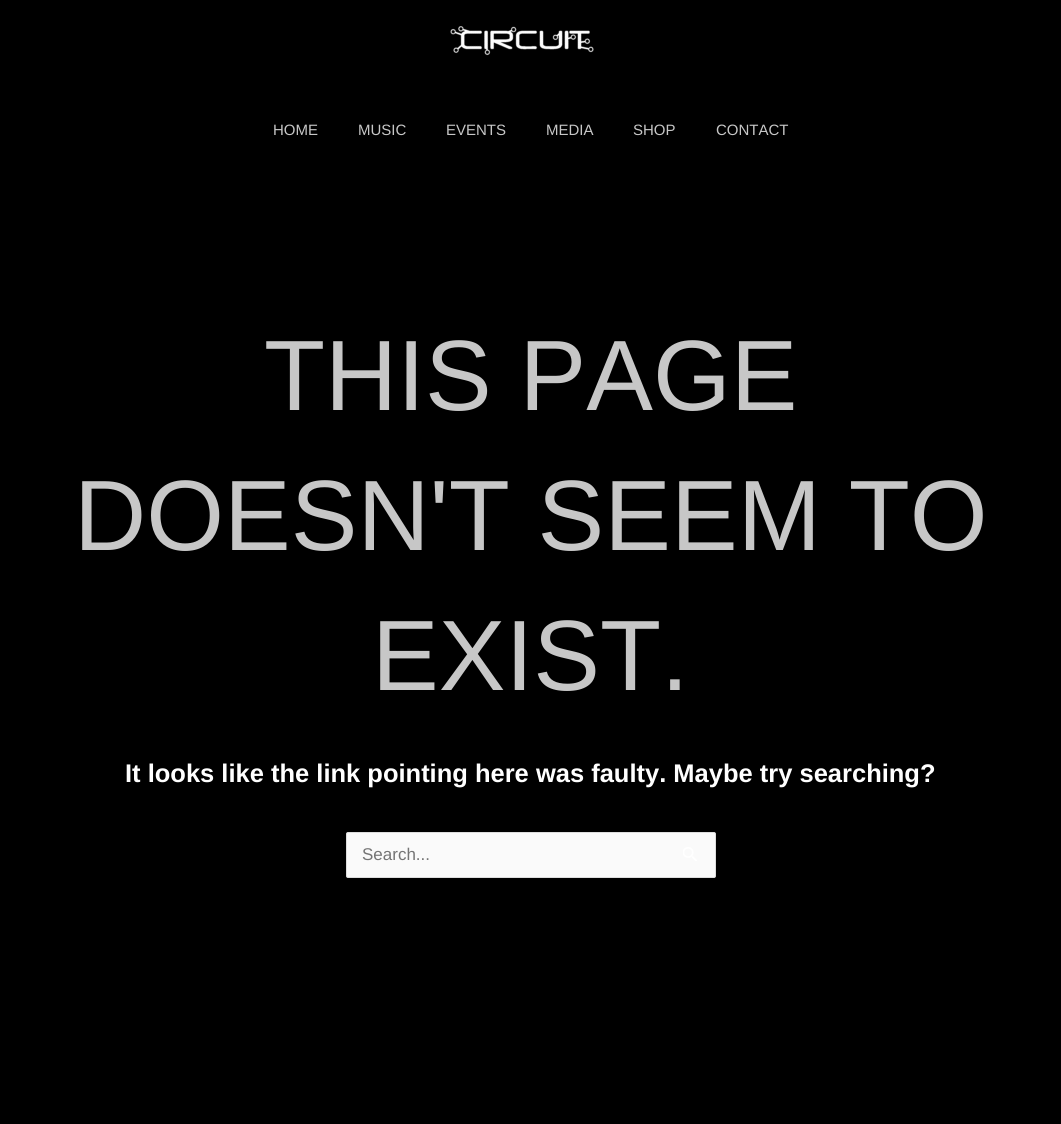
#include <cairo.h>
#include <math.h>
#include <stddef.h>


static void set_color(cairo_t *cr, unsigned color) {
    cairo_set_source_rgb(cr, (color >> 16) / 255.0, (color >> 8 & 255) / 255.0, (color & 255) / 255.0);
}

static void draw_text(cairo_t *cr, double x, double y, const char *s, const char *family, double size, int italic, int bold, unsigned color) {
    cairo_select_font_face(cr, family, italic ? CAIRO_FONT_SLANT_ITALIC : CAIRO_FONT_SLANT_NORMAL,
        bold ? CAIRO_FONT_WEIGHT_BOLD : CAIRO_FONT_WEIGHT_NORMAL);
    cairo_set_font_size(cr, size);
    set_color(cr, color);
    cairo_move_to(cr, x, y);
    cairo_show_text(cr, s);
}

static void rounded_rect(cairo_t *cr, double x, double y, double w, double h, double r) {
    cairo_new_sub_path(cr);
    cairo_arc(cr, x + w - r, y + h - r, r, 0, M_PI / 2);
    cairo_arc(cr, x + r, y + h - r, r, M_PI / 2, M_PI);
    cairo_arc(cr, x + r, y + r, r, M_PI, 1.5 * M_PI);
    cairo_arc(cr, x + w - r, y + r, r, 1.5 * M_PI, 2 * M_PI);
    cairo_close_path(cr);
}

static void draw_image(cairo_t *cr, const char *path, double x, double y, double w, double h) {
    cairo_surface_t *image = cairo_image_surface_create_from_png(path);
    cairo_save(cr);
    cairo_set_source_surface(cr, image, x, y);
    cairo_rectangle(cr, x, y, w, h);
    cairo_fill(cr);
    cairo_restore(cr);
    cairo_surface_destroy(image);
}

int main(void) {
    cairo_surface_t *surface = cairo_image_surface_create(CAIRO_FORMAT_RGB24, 1061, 1124);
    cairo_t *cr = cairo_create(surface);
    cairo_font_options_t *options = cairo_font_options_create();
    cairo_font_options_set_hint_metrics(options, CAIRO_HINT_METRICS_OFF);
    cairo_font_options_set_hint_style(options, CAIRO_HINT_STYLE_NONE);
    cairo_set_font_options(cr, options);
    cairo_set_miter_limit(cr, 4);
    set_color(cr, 0x000000);
    cairo_paint(cr);
    draw_image(cr, "assets/img1.png", 450, 26, 144, 30);
    draw_text(cr, 273, 135, "HOME", "Liberation Sans", 15, 0, 0, 0xC7C7C7);
    draw_text(cr, 358, 135, "MUSIC", "Liberation Sans", 15, 0, 0, 0xC7C7C7);
    draw_text(cr, 446, 135, "EVENTS", "Liberation Sans", 15, 0, 0, 0xC7C7C7);
    draw_text(cr, 546, 135, "MEDIA", "Liberation Sans", 15, 0, 0, 0xC7C7C7);
    draw_text(cr, 633, 135, "SHOP", "Liberation Sans", 15, 0, 0, 0xC7C7C7);
    draw_text(cr, 716, 135, "CONTACT", "Liberation Sans", 15, 0, 0, 0xC7C7C7);
    draw_text(cr, 264, 410, "THIS PAGE", "Liberation Sans", 100, 0, 0, 0xC7C7C7);
    draw_text(cr, 74, 550, "DOESN'T SEEM TO", "Liberation Sans", 100, 0, 0, 0xC7C7C7);
    draw_text(cr, 372, 690, "EXIST.", "Liberation Sans", 100, 0, 0, 0xC7C7C7);
    draw_text(cr, 125, 782, "It looks like the link pointing here was faulty. Maybe try searching?", "Liberation Sans", 25.5, 0, 1, 0xFFFFFF);
    set_color(cr, 0xFAFAFA);
    rounded_rect(cr, 346.5, 832.5, 369, 45, 1.5);
    cairo_fill_preserve(cr);
    set_color(cr, 0xDDDDDD);
    cairo_set_line_width(cr, 1);
    cairo_stroke(cr);
    draw_text(cr, 362, 860, "Search...", "Liberation Sans", 17, 0, 0, 0x757575);
    draw_image(cr, "assets/img2.png", 683, 847, 14, 14);
    cairo_surface_write_to_png(surface, "output.png");
    cairo_font_options_destroy(options);
    cairo_destroy(cr);
    cairo_surface_destroy(surface);
    return 0;
}
